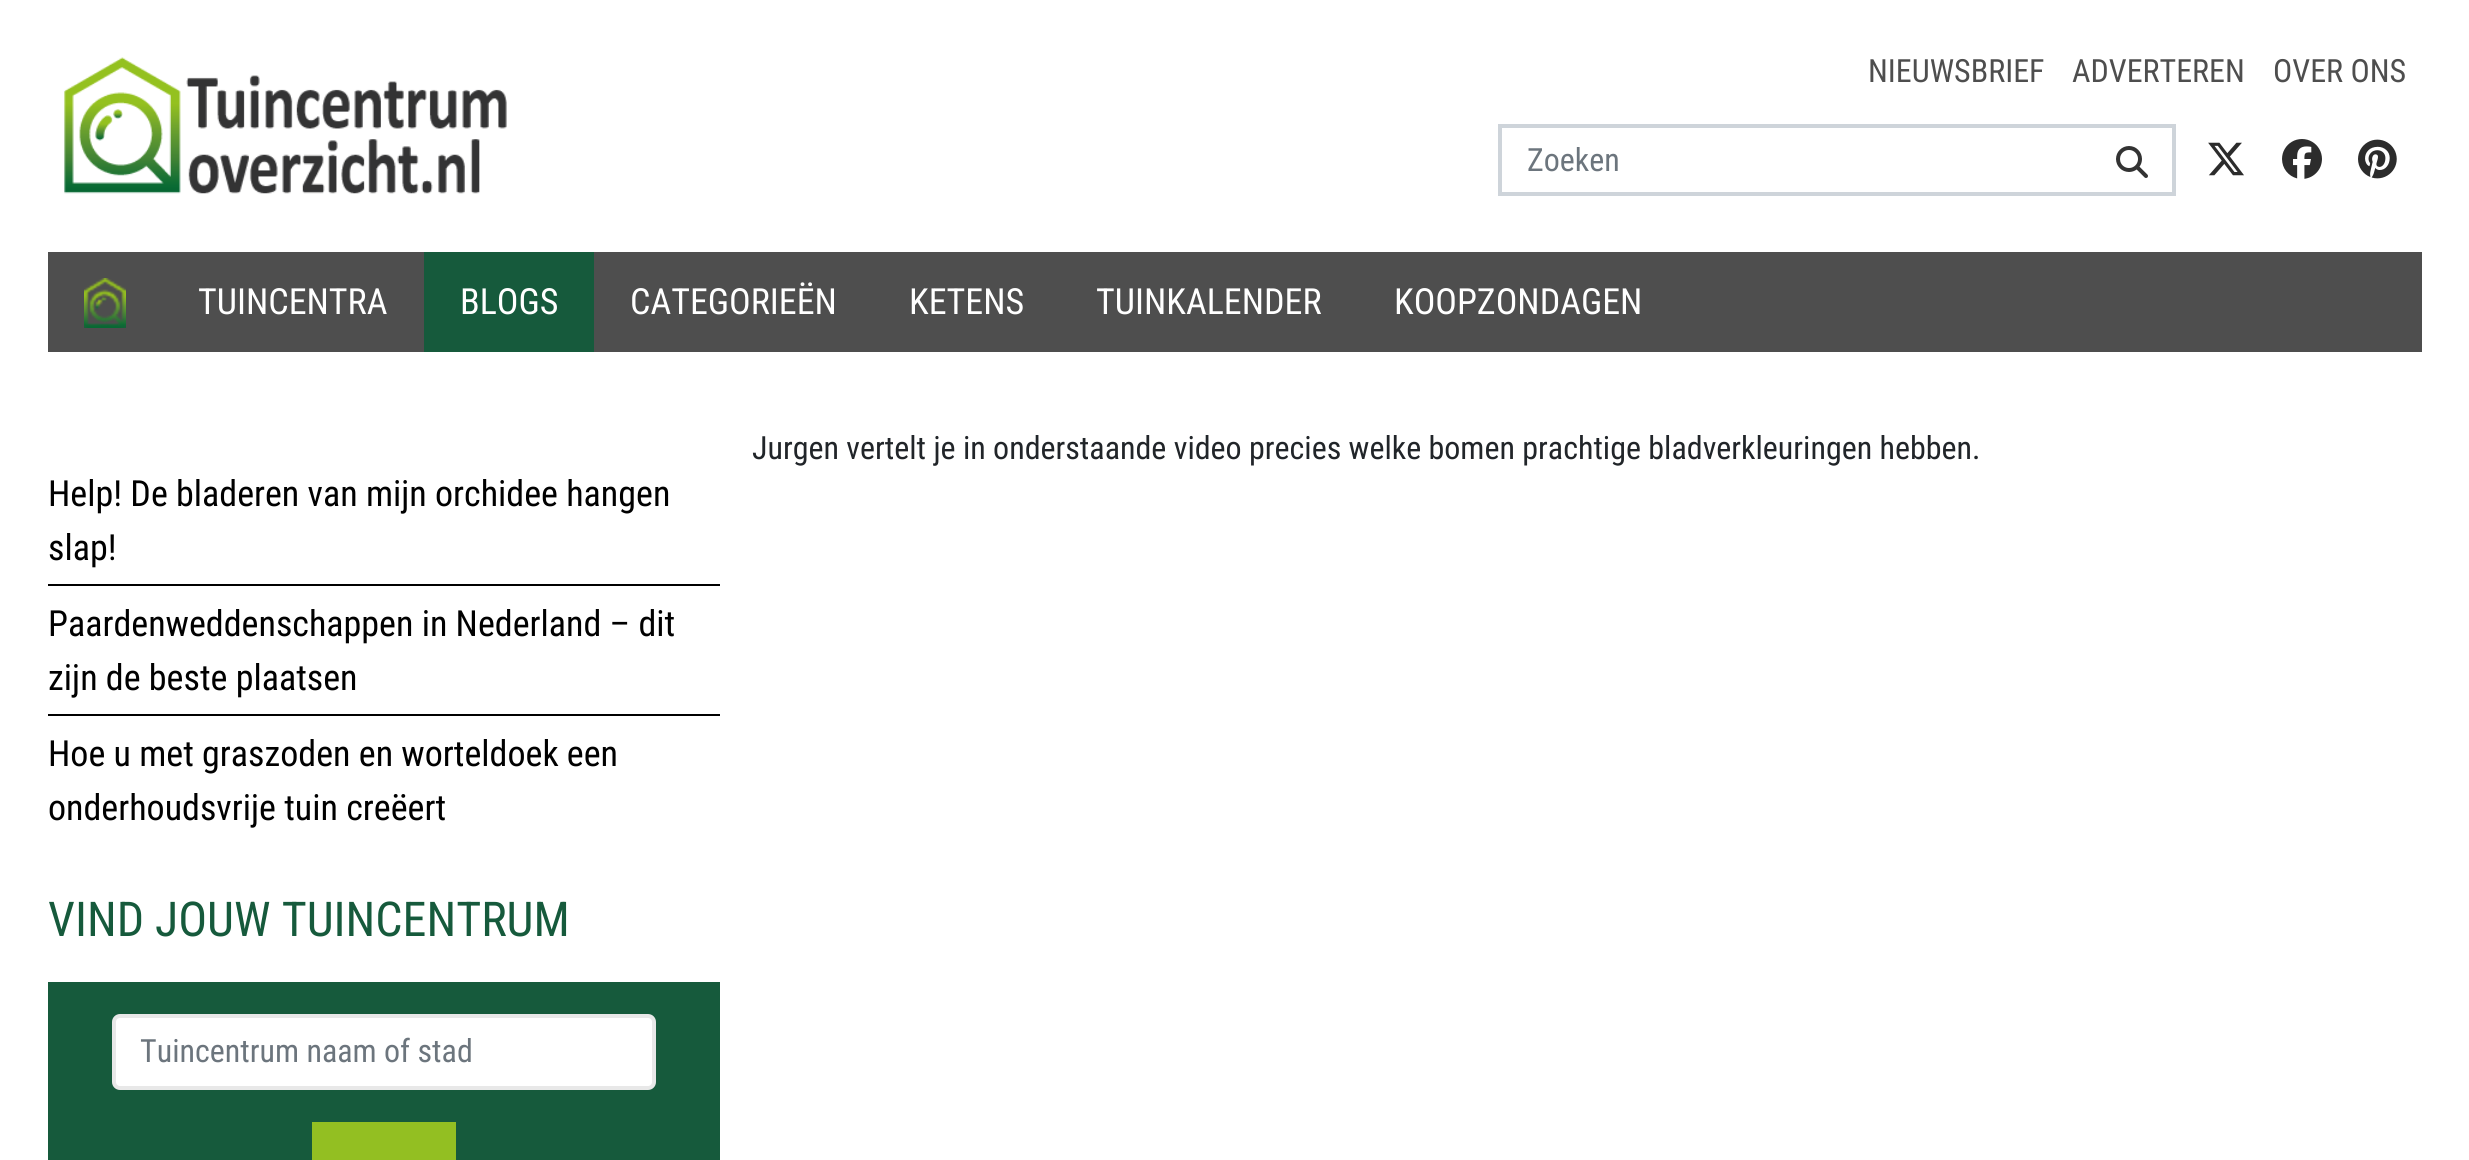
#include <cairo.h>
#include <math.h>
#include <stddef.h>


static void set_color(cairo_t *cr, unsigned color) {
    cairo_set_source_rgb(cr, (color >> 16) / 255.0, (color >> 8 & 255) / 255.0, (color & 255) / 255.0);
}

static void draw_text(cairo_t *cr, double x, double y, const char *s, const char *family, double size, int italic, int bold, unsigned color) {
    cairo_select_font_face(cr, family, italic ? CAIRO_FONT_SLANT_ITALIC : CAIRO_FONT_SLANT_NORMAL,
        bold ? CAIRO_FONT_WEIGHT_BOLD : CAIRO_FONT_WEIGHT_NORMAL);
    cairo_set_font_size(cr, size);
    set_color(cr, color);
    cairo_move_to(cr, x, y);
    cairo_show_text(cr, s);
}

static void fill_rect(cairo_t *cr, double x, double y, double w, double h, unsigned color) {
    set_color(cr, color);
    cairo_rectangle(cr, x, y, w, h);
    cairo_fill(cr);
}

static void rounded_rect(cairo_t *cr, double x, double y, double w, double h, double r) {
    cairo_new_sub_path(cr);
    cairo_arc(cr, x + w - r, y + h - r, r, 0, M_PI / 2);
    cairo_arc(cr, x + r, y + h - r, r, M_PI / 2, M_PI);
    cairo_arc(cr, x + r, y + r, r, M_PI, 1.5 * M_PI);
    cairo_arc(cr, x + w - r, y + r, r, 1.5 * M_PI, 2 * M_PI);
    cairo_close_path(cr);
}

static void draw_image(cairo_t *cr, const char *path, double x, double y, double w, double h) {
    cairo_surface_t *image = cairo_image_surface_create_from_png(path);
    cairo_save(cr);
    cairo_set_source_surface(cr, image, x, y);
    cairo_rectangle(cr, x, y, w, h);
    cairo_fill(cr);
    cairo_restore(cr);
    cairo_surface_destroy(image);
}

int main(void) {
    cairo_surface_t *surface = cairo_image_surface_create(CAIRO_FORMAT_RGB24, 2469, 1160);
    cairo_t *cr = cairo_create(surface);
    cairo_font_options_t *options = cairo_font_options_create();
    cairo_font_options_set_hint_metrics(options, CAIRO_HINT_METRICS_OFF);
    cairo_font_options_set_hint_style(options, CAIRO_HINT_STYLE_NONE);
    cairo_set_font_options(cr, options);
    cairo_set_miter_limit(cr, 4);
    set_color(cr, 0xFFFFFF);
    cairo_paint(cr);
    draw_image(cr, "assets/img1.png", 64, 57, 443, 137);
    draw_text(cr, 1868, 82, "NIEUWSBRIEF", "Roboto Condensed", 32, 0, 0, 0x4E4E4E);
    draw_text(cr, 2072, 82, "ADVERTEREN", "Roboto Condensed", 32, 0, 0, 0x4E4E4E);
    draw_text(cr, 2273, 82, "OVER ONS", "Roboto Condensed", 32, 0, 0, 0x4E4E4E);
    fill_rect(cr, 1498, 124, 678, 4, 0xCED4DA);
    fill_rect(cr, 1498, 192, 564, 4, 0xCED4DA);
    fill_rect(cr, 1498, 124, 4, 72, 0xCED4DA);
    draw_text(cr, 1527, 171, "Zoeken", "Roboto Condensed", 32, 0, 0, 0x6C757D);
    fill_rect(cr, 2172, 124, 4, 72, 0xCED4DA);
    fill_rect(cr, 2062, 192, 114, 4, 0xCED4DA);
    draw_image(cr, "assets/img2.png", 2116, 146, 32, 32);
    draw_image(cr, "assets/img3.png", 2208, 142, 36, 34);
    draw_image(cr, "assets/img4.png", 2282, 139, 40, 40);
    draw_image(cr, "assets/img5.png", 2358, 139, 39, 40);
    fill_rect(cr, 48, 252, 2374, 100, 0x4E4E4E);
    draw_image(cr, "assets/img6.png", 84, 278, 42, 50);
    draw_text(cr, 198, 314, "TUINCENTRA", "Roboto Condensed", 36, 0, 0, 0xFFFFFF);
    fill_rect(cr, 424, 252, 170, 100, 0x165A3C);
    draw_text(cr, 460, 314, "BLOGS", "Roboto Condensed", 36, 0, 0, 0xFFFFFF);
    draw_text(cr, 630, 314, "CATEGORIEËN", "Roboto Condensed", 36, 0, 0, 0xFFFFFF);
    draw_text(cr, 909, 314, "KETENS", "Roboto Condensed", 36, 0, 0, 0xFFFFFF);
    draw_text(cr, 1096, 314, "TUINKALENDER", "Roboto Condensed", 36, 0, 0, 0xFFFFFF);
    draw_text(cr, 1394, 314, "KOOPZONDAGEN", "Roboto Condensed", 36, 0, 0, 0xFFFFFF);
    draw_text(cr, 752, 459, "Jurgen vertelt je in onderstaande video precies welke bomen prachtige bladverkleuringen hebben.", "Roboto Condensed", 32, 0, 0, 0x212529);
    fill_rect(cr, 48, 584, 672, 2, 0x000000);
    draw_text(cr, 48, 506, "Help! De bladeren van mijn orchidee hangen", "Roboto Condensed", 36, 0, 0, 0x000000);
    draw_text(cr, 48, 560, "slap!", "Roboto Condensed", 36, 0, 0, 0x000000);
    fill_rect(cr, 48, 714, 672, 2, 0x000000);
    draw_text(cr, 48, 636, "Paardenweddenschappen in Nederland – dit", "Roboto Condensed", 36, 0, 0, 0x000000);
    draw_text(cr, 48, 690, "zijn de beste plaatsen", "Roboto Condensed", 36, 0, 0, 0x000000);
    draw_text(cr, 48, 766, "Hoe u met graszoden en worteldoek een", "Roboto Condensed", 36, 0, 0, 0x000000);
    draw_text(cr, 48, 820, "onderhoudsvrije tuin creëert", "Roboto Condensed", 36, 0, 0, 0x000000);
    draw_text(cr, 48, 936, "VIND JOUW TUINCENTRUM", "Roboto Condensed", 48, 0, 0, 0x165A3C);
    fill_rect(cr, 48, 982, 672, 178, 0x165A3C);
    set_color(cr, 0xFFFFFF);
    rounded_rect(cr, 114, 1016, 540, 72, 6);
    cairo_fill_preserve(cr);
    set_color(cr, 0xE8E8E8);
    cairo_set_line_width(cr, 4);
    cairo_stroke(cr);
    draw_text(cr, 140, 1062, "Tuincentrum naam of stad", "Roboto Condensed", 32, 0, 0, 0x6C757D);
    fill_rect(cr, 312, 1122, 144, 38, 0x93BF22);
    cairo_surface_write_to_png(surface, "output.png");
    cairo_font_options_destroy(options);
    cairo_destroy(cr);
    cairo_surface_destroy(surface);
    return 0;
}
